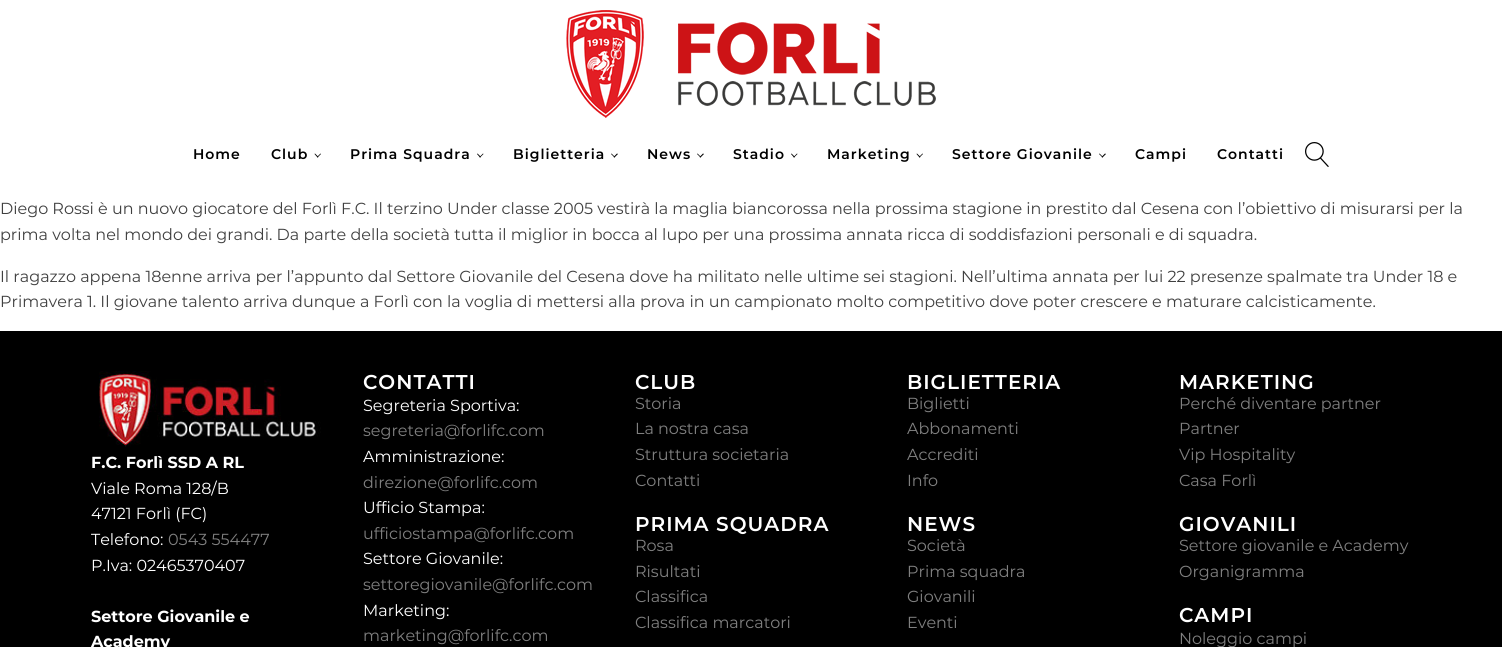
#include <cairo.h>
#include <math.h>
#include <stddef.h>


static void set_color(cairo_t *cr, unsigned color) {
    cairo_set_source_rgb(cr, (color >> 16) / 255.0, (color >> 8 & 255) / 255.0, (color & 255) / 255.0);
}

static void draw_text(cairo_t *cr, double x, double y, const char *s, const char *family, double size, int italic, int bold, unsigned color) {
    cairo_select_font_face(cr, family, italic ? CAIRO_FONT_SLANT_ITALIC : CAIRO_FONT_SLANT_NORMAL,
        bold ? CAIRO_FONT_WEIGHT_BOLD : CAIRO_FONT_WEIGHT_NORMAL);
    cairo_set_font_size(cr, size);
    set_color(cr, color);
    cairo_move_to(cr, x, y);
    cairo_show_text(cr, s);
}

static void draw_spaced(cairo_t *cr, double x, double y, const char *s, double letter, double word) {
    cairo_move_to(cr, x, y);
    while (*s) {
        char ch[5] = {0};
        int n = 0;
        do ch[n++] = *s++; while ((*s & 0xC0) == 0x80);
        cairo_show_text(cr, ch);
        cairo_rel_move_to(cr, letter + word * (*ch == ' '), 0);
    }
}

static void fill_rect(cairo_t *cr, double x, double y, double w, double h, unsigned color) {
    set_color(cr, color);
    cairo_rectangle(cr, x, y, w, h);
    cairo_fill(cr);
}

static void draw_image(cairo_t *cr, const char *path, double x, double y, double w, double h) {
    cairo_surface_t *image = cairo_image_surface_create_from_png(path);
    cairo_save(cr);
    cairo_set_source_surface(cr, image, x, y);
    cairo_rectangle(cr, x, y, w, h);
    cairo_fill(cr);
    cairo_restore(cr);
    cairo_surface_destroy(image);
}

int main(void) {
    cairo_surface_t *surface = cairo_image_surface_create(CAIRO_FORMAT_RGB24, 1502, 647);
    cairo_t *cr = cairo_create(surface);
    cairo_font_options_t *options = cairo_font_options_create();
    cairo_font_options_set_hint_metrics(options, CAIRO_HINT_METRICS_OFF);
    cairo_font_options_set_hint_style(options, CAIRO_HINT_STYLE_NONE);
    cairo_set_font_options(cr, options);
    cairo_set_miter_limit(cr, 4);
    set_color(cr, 0xFFFFFF);
    cairo_paint(cr);
    draw_image(cr, "assets/img1.png", 566, 10, 370, 108);
    cairo_select_font_face(cr, "Montserrat SemiBold", CAIRO_FONT_SLANT_NORMAL, CAIRO_FONT_WEIGHT_NORMAL);
    cairo_set_font_size(cr, 14);
    set_color(cr, 0x000000);
    draw_spaced(cr, 193, 159, "Home", 1, 0);
    draw_spaced(cr, 271, 159, "Club", 1, 0);
    cairo_new_path(cr);
    cairo_move_to(cr, 321, 154);
    cairo_line_to(cr, 317.5, 157.5);
    cairo_line_to(cr, 317, 157);
    cairo_line_to(cr, 320.5, 153.5);
    cairo_close_path(cr);
    cairo_fill(cr);
    cairo_new_path(cr);
    cairo_move_to(cr, 318.5, 157);
    cairo_line_to(cr, 317.5, 157.5);
    cairo_line_to(cr, 314.5, 154);
    cairo_line_to(cr, 315, 153.5);
    cairo_close_path(cr);
    cairo_fill(cr);
    draw_spaced(cr, 350, 159, "Prima Squadra", 1, 0);
    cairo_new_path(cr);
    cairo_move_to(cr, 483.5, 154);
    cairo_line_to(cr, 480, 157.5);
    cairo_line_to(cr, 479.5, 157);
    cairo_line_to(cr, 483, 153.5);
    cairo_close_path(cr);
    cairo_fill(cr);
    cairo_new_path(cr);
    cairo_move_to(cr, 481, 157);
    cairo_line_to(cr, 480, 157.5);
    cairo_line_to(cr, 477, 154);
    cairo_line_to(cr, 477.5, 153.5);
    cairo_close_path(cr);
    cairo_fill(cr);
    draw_spaced(cr, 513, 159, "Biglietteria", 1, 0);
    cairo_new_path(cr);
    cairo_move_to(cr, 618, 154);
    cairo_line_to(cr, 614.5, 157.5);
    cairo_line_to(cr, 613.5, 157);
    cairo_line_to(cr, 617, 153.5);
    cairo_close_path(cr);
    cairo_fill(cr);
    cairo_new_path(cr);
    cairo_move_to(cr, 615, 157);
    cairo_line_to(cr, 614.5, 157.5);
    cairo_line_to(cr, 611, 154);
    cairo_line_to(cr, 611.5, 153.5);
    cairo_close_path(cr);
    cairo_fill(cr);
    draw_spaced(cr, 647, 159, "News", 1, 0);
    cairo_new_path(cr);
    cairo_move_to(cr, 704, 154);
    cairo_line_to(cr, 700.5, 157.5);
    cairo_line_to(cr, 699.5, 157);
    cairo_line_to(cr, 703, 153.5);
    cairo_close_path(cr);
    cairo_fill(cr);
    cairo_new_path(cr);
    cairo_move_to(cr, 701, 157);
    cairo_line_to(cr, 700.5, 157.5);
    cairo_line_to(cr, 697, 154);
    cairo_line_to(cr, 697.5, 153.5);
    cairo_close_path(cr);
    cairo_fill(cr);
    draw_spaced(cr, 733, 159, "Stadio", 1, 0);
    cairo_new_path(cr);
    cairo_move_to(cr, 797.5, 154);
    cairo_line_to(cr, 794, 157.5);
    cairo_line_to(cr, 793.5, 157);
    cairo_line_to(cr, 797, 153.5);
    cairo_close_path(cr);
    cairo_fill(cr);
    cairo_new_path(cr);
    cairo_move_to(cr, 795, 157);
    cairo_line_to(cr, 794, 157.5);
    cairo_line_to(cr, 791, 154);
    cairo_line_to(cr, 791.5, 153.5);
    cairo_close_path(cr);
    cairo_fill(cr);
    draw_spaced(cr, 827, 159, "Marketing", 1, 0);
    cairo_new_path(cr);
    cairo_move_to(cr, 923, 154);
    cairo_line_to(cr, 919.5, 157.5);
    cairo_line_to(cr, 919, 157);
    cairo_line_to(cr, 922.5, 153.5);
    cairo_close_path(cr);
    cairo_fill(cr);
    cairo_new_path(cr);
    cairo_move_to(cr, 920.5, 157);
    cairo_line_to(cr, 919.5, 157.5);
    cairo_line_to(cr, 916.5, 154);
    cairo_line_to(cr, 917, 153.5);
    cairo_close_path(cr);
    cairo_fill(cr);
    draw_spaced(cr, 952, 159, "Settore Giovanile", 1, 0);
    cairo_new_path(cr);
    cairo_move_to(cr, 1106, 154);
    cairo_line_to(cr, 1102.5, 157.5);
    cairo_line_to(cr, 1101.5, 157);
    cairo_line_to(cr, 1105, 153.5);
    cairo_close_path(cr);
    cairo_fill(cr);
    cairo_new_path(cr);
    cairo_move_to(cr, 1103, 157);
    cairo_line_to(cr, 1102.5, 157.5);
    cairo_line_to(cr, 1099, 154);
    cairo_line_to(cr, 1099.5, 153.5);
    cairo_close_path(cr);
    cairo_fill(cr);
    draw_spaced(cr, 1135, 159, "Campi", 1, 0);
    draw_spaced(cr, 1217, 159, "Contatti", 1, 0);
    draw_image(cr, "assets/img2.png", 1305, 142, 24, 25);
    draw_text(cr, 0, 214, "Diego Rossi è un nuovo giocatore del Forlì F.C. Il terzino Under classe 2005 vestirà la maglia biancorossa nella prossima stagione in prestito dal Cesena con l’obiettivo di misurarsi per la", "Montserrat", 16, 0, 0, 0x404040);
    draw_text(cr, 0, 240, "prima volta nel mondo dei grandi. Da parte della società tutta il miglior in bocca al lupo per una prossima annata ricca di soddisfazioni personali e di squadra.", "Montserrat", 16, 0, 0, 0x404040);
    draw_text(cr, 0, 282, "Il ragazzo appena 18enne arriva per l’appunto dal Settore Giovanile del Cesena dove ha militato nelle ultime sei stagioni. Nell’ultima annata per lui 22 presenze spalmate tra Under 18 e", "Montserrat", 16, 0, 0, 0x404040);
    draw_text(cr, 0, 307, "Primavera 1. Il giovane talento arriva dunque a Forlì con la voglia di mettersi alla prova in un campionato molto competitivo dove poter crescere e maturare calcisticamente.", "Montserrat", 16, 0, 0, 0x404040);
    fill_rect(cr, 0, 331, 1502, 316, 0x000000);
    draw_image(cr, "assets/img3.png", 99, 371, 222, 76);
    draw_text(cr, 91, 468, "F.C. Forlì SSD A RL", "Montserrat", 16, 0, 1, 0xFFFFFF);
    draw_text(cr, 91, 494, "Viale Roma 128/B", "Montserrat", 16, 0, 0, 0xFFFFFF);
    draw_text(cr, 91, 519, "47121 Forlì (FC)", "Montserrat", 16, 0, 0, 0xFFFFFF);
    draw_text(cr, 91, 545, "Telefono:", "Montserrat", 16, 0, 0, 0xFFFFFF);
    draw_text(cr, 168, 545, "0543 554477", "Montserrat", 16, 0, 0, 0x808080);
    draw_text(cr, 91, 571, "P.Iva: 02465370407", "Montserrat", 16, 0, 0, 0xFFFFFF);
    draw_text(cr, 91, 622, "Settore Giovanile e", "Montserrat", 16, 0, 1, 0xFFFFFF);
    draw_text(cr, 91, 647, "Academy", "Montserrat", 16, 0, 1, 0xFFFFFF);
    cairo_select_font_face(cr, "Montserrat SemiBold", CAIRO_FONT_SLANT_NORMAL, CAIRO_FONT_WEIGHT_NORMAL);
    cairo_set_font_size(cr, 20);
    draw_spaced(cr, 363, 389, "CONTATTI", 1, 0);
    draw_text(cr, 363, 411, "Segreteria Sportiva:", "Montserrat", 16, 0, 0, 0xFFFFFF);
    draw_text(cr, 363, 436, "segreteria@forlifc.com", "Montserrat", 16, 0, 0, 0x808080);
    draw_text(cr, 363, 462, "Amministrazione:", "Montserrat", 16, 0, 0, 0xFFFFFF);
    draw_text(cr, 363, 488, "direzione@forlifc.com", "Montserrat", 16, 0, 0, 0x808080);
    draw_text(cr, 363, 513, "Ufficio Stampa:", "Montserrat", 16, 0, 0, 0xFFFFFF);
    draw_text(cr, 363, 539, "ufficiostampa@forlifc.com", "Montserrat", 16, 0, 0, 0x808080);
    draw_text(cr, 363, 564, "Settore Giovanile:", "Montserrat", 16, 0, 0, 0xFFFFFF);
    draw_text(cr, 363, 590, "settoregiovanile@forlifc.com", "Montserrat", 16, 0, 0, 0x808080);
    draw_text(cr, 363, 616, "Marketing:", "Montserrat", 16, 0, 0, 0xFFFFFF);
    draw_text(cr, 363, 641, "marketing@forlifc.com", "Montserrat", 16, 0, 0, 0x808080);
    cairo_select_font_face(cr, "Montserrat SemiBold", CAIRO_FONT_SLANT_NORMAL, CAIRO_FONT_WEIGHT_NORMAL);
    cairo_set_font_size(cr, 20);
    set_color(cr, 0xFFFFFF);
    draw_spaced(cr, 635, 389, "CLUB", 1, 0);
    draw_text(cr, 635, 409, "Storia", "Montserrat", 16, 0, 0, 0x808080);
    draw_text(cr, 635, 434, "La nostra casa", "Montserrat", 16, 0, 0, 0x808080);
    draw_text(cr, 635, 460, "Struttura societaria", "Montserrat", 16, 0, 0, 0x808080);
    draw_text(cr, 635, 486, "Contatti", "Montserrat", 16, 0, 0, 0x808080);
    cairo_select_font_face(cr, "Montserrat SemiBold", CAIRO_FONT_SLANT_NORMAL, CAIRO_FONT_WEIGHT_NORMAL);
    cairo_set_font_size(cr, 20);
    set_color(cr, 0xFFFFFF);
    draw_spaced(cr, 635, 531, "PRIMA SQUADRA", 1, 0);
    draw_text(cr, 635, 551, "Rosa", "Montserrat", 16, 0, 0, 0x808080);
    draw_text(cr, 635, 577, "Risultati", "Montserrat", 16, 0, 0, 0x808080);
    draw_text(cr, 635, 602, "Classifica", "Montserrat", 16, 0, 0, 0x808080);
    draw_text(cr, 635, 628, "Classifica marcatori", "Montserrat", 16, 0, 0, 0x808080);
    cairo_select_font_face(cr, "Montserrat SemiBold", CAIRO_FONT_SLANT_NORMAL, CAIRO_FONT_WEIGHT_NORMAL);
    cairo_set_font_size(cr, 20);
    set_color(cr, 0xFFFFFF);
    draw_spaced(cr, 907, 389, "BIGLIETTERIA", 1, 0);
    draw_text(cr, 907, 409, "Biglietti", "Montserrat", 16, 0, 0, 0x808080);
    draw_text(cr, 907, 434, "Abbonamenti", "Montserrat", 16, 0, 0, 0x808080);
    draw_text(cr, 907, 460, "Accrediti", "Montserrat", 16, 0, 0, 0x808080);
    draw_text(cr, 907, 486, "Info", "Montserrat", 16, 0, 0, 0x808080);
    cairo_select_font_face(cr, "Montserrat SemiBold", CAIRO_FONT_SLANT_NORMAL, CAIRO_FONT_WEIGHT_NORMAL);
    cairo_set_font_size(cr, 20);
    set_color(cr, 0xFFFFFF);
    draw_spaced(cr, 907, 531, "NEWS", 1, 0);
    draw_text(cr, 907, 551, "Società", "Montserrat", 16, 0, 0, 0x808080);
    draw_text(cr, 907, 577, "Prima squadra", "Montserrat", 16, 0, 0, 0x808080);
    draw_text(cr, 907, 602, "Giovanili", "Montserrat", 16, 0, 0, 0x808080);
    draw_text(cr, 907, 628, "Eventi", "Montserrat", 16, 0, 0, 0x808080);
    cairo_select_font_face(cr, "Montserrat SemiBold", CAIRO_FONT_SLANT_NORMAL, CAIRO_FONT_WEIGHT_NORMAL);
    cairo_set_font_size(cr, 20);
    set_color(cr, 0xFFFFFF);
    draw_spaced(cr, 1179, 389, "MARKETING", 1, 0);
    draw_text(cr, 1179, 409, "Perché diventare partner", "Montserrat", 16, 0, 0, 0x808080);
    draw_text(cr, 1179, 434, "Partner", "Montserrat", 16, 0, 0, 0x808080);
    draw_text(cr, 1179, 460, "Vip Hospitality", "Montserrat", 16, 0, 0, 0x808080);
    draw_text(cr, 1179, 486, "Casa Forlì", "Montserrat", 16, 0, 0, 0x808080);
    cairo_select_font_face(cr, "Montserrat SemiBold", CAIRO_FONT_SLANT_NORMAL, CAIRO_FONT_WEIGHT_NORMAL);
    cairo_set_font_size(cr, 20);
    set_color(cr, 0xFFFFFF);
    draw_spaced(cr, 1179, 531, "GIOVANILI", 1, 0);
    draw_text(cr, 1179, 551, "Settore giovanile e Academy", "Montserrat", 16, 0, 0, 0x808080);
    draw_text(cr, 1179, 577, "Organigramma", "Montserrat", 16, 0, 0, 0x808080);
    cairo_select_font_face(cr, "Montserrat SemiBold", CAIRO_FONT_SLANT_NORMAL, CAIRO_FONT_WEIGHT_NORMAL);
    cairo_set_font_size(cr, 20);
    set_color(cr, 0xFFFFFF);
    draw_spaced(cr, 1179, 622, "CAMPI", 1, 0);
    draw_text(cr, 1179, 644, "Noleggio campi", "Montserrat", 16, 0, 0, 0x808080);
    cairo_surface_write_to_png(surface, "output.png");
    cairo_font_options_destroy(options);
    cairo_destroy(cr);
    cairo_surface_destroy(surface);
    return 0;
}
